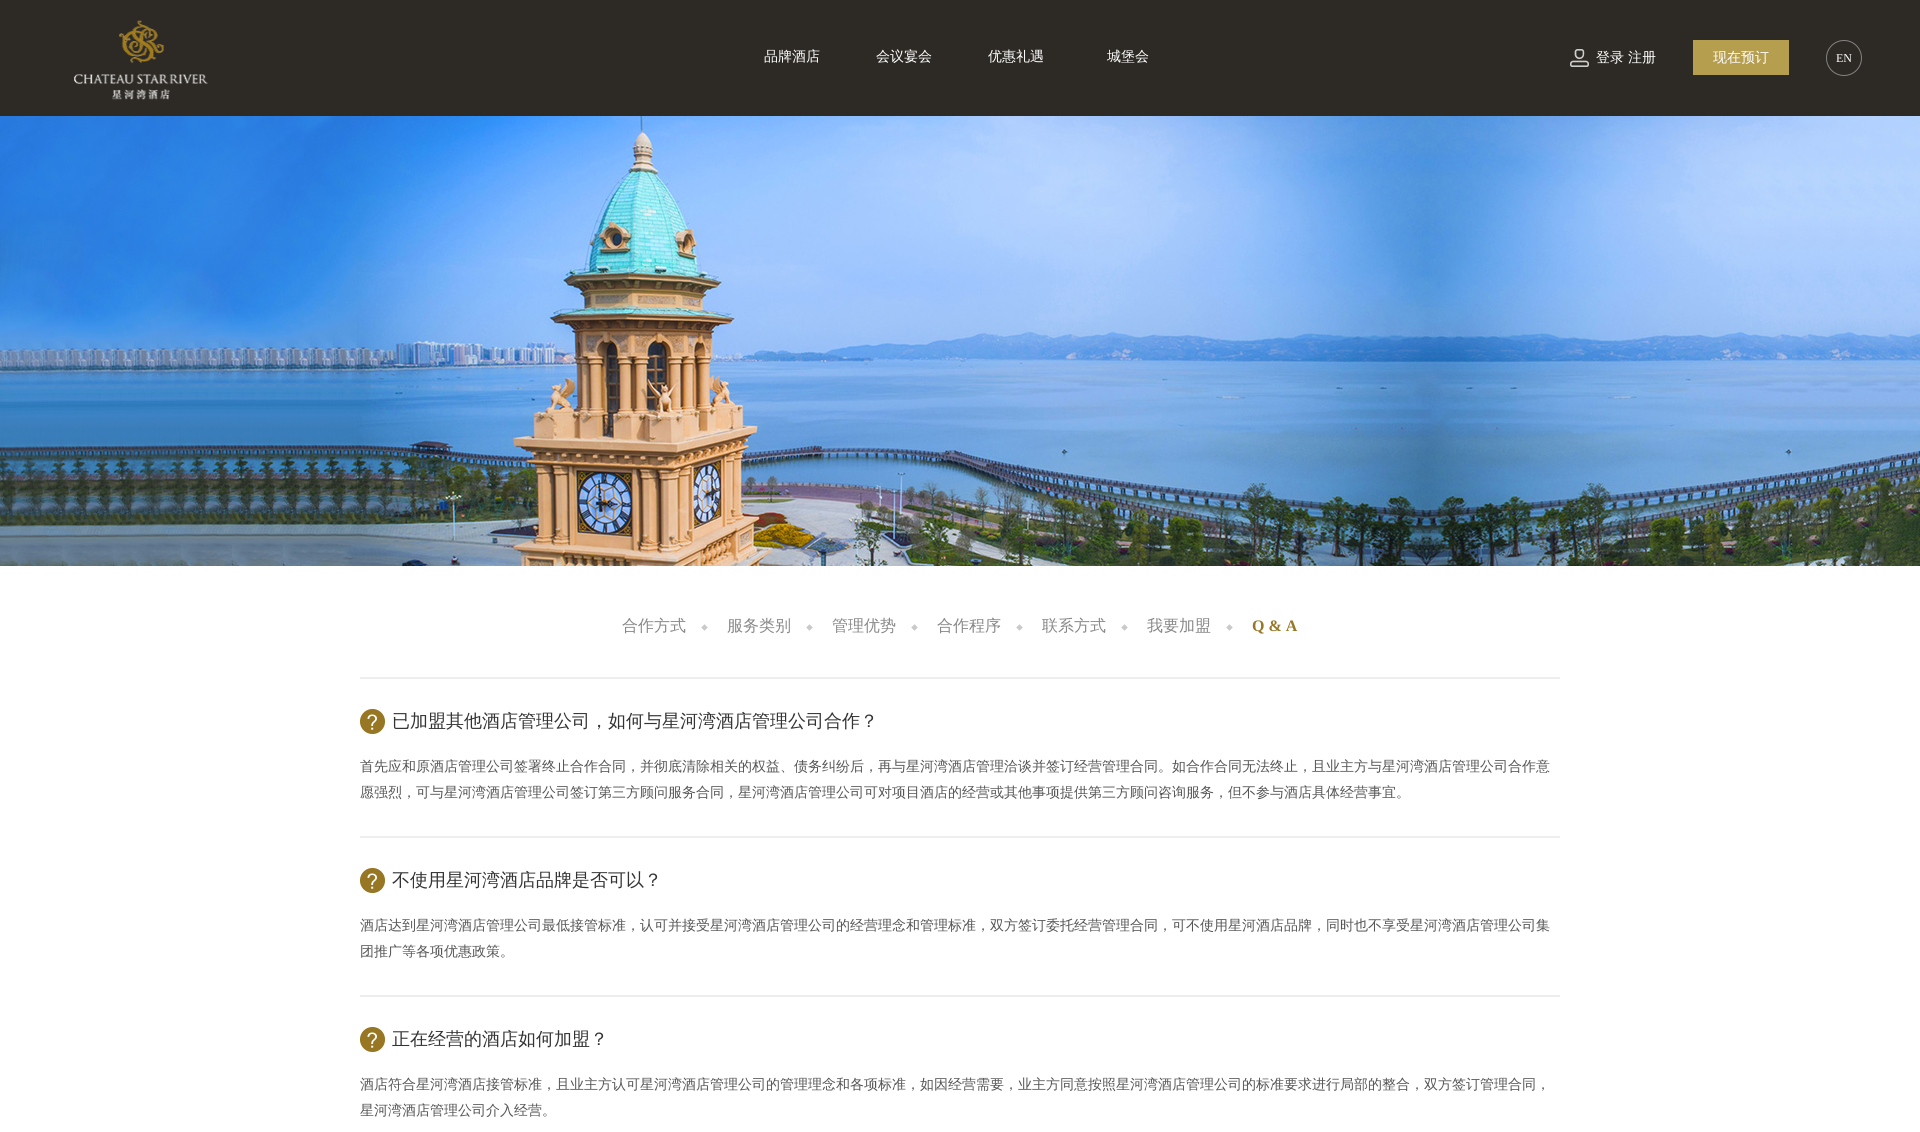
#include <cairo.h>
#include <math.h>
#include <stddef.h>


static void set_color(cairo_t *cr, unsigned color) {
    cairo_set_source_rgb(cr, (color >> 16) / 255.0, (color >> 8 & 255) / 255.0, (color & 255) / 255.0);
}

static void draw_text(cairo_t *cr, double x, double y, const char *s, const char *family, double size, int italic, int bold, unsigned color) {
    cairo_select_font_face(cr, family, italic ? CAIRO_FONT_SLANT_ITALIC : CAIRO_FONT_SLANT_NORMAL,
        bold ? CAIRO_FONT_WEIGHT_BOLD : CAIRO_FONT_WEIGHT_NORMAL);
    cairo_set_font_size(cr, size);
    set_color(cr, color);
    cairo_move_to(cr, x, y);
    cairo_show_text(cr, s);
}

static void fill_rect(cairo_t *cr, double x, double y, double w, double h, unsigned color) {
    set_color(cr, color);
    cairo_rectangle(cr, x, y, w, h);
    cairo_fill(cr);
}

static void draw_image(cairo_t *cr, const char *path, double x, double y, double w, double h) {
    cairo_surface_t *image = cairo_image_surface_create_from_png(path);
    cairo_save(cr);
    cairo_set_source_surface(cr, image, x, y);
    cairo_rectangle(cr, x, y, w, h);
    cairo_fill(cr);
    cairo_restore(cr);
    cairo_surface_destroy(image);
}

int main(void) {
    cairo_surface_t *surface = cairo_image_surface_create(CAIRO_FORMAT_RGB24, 1920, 1132);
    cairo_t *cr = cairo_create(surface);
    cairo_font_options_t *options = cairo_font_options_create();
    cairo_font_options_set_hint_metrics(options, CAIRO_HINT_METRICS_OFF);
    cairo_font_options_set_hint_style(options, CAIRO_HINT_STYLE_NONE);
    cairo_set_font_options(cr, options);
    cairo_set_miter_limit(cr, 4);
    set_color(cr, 0xFFFFFF);
    cairo_paint(cr);
    fill_rect(cr, 0, 0, 1920, 116, 0x2D2A25);
    draw_image(cr, "assets/img1.png", 74, 20, 134, 80);
    draw_text(cr, 764, 61, "品牌酒店", "WenQuanYi Zen Hei Medium", 14, 0, 0, 0xFFFFFF);
    draw_text(cr, 876, 61, "会议宴会", "WenQuanYi Zen Hei Medium", 14, 0, 0, 0xFFFFFF);
    draw_text(cr, 988, 61, "优惠礼遇", "WenQuanYi Zen Hei Medium", 14, 0, 0, 0xFFFFFF);
    draw_text(cr, 1107, 61, "城堡会", "WenQuanYi Zen Hei Medium", 14, 0, 0, 0xFFFFFF);
    draw_image(cr, "assets/img2.png", 1570, 49, 19, 18);
    draw_text(cr, 1596, 62, "登录", "WenQuanYi Zen Hei Medium", 14, 0, 0, 0xFFFFFF);
    draw_text(cr, 1628, 62, "注册", "WenQuanYi Zen Hei Medium", 14, 0, 0, 0xFFFFFF);
    fill_rect(cr, 1693, 40, 96, 35, 0xB69E4F);
    draw_text(cr, 1713, 62, "现在预订", "WenQuanYi Zen Hei Medium", 14, 0, 0, 0xFFFFFF);
    cairo_new_path(cr);
    cairo_arc(cr, 1844, 58, 17.5, 0, 2 * M_PI);
    set_color(cr, 0x828282);
    cairo_set_line_width(cr, 1);
    cairo_stroke(cr);
    draw_text(cr, 1836, 62, "EN", "Liberation Serif", 12, 0, 0, 0xFFFFFF);
    draw_image(cr, "assets/img3.png", 0, 116, 1920, 450);
    draw_text(cr, 622, 631, "合作方式", "WenQuanYi Zen Hei Medium", 16, 0, 0, 0x888888);
    draw_image(cr, "assets/img4.png", 701, 624, 7, 7);
    draw_text(cr, 727, 631, "服务类别", "WenQuanYi Zen Hei Medium", 16, 0, 0, 0x888888);
    draw_image(cr, "assets/img4.png", 806, 624, 7, 7);
    draw_text(cr, 832, 631, "管理优势", "WenQuanYi Zen Hei Medium", 16, 0, 0, 0x888888);
    draw_image(cr, "assets/img4.png", 911, 624, 7, 7);
    draw_text(cr, 937, 631, "合作程序", "WenQuanYi Zen Hei Medium", 16, 0, 0, 0x888888);
    draw_image(cr, "assets/img4.png", 1016, 624, 7, 7);
    draw_text(cr, 1042, 631, "联系方式", "WenQuanYi Zen Hei Medium", 16, 0, 0, 0x888888);
    draw_image(cr, "assets/img4.png", 1121, 624, 7, 7);
    draw_text(cr, 1147, 631, "我要加盟", "WenQuanYi Zen Hei Medium", 16, 0, 0, 0x888888);
    draw_image(cr, "assets/img4.png", 1226, 624, 7, 7);
    draw_text(cr, 1252, 631, "Q & A", "Liberation Serif", 16, 0, 1, 0x987724);
    fill_rect(cr, 360, 677, 1200, 2, 0xEEEEEE);
    fill_rect(cr, 360, 836, 1200, 2, 0xEEEEEE);
    draw_image(cr, "assets/img5.png", 360, 709, 25, 25);
    draw_text(cr, 392, 727, "已加盟其他酒店管理公司，如何与星河湾酒店管理公司合作？", "WenQuanYi Zen Hei Medium", 18, 0, 0, 0x333333);
    draw_text(cr, 360, 771, "首先应和原酒店管理公司签署终止合作合同，并彻底清除相关的权益、债务纠纷后，再与星河湾酒店管理洽谈并签订经营管理合同。如合作合同无法终止，且业主方与星河湾酒店管理公司合作意", "WenQuanYi Zen Hei Medium", 14, 0, 0, 0x555555);
    draw_text(cr, 360, 797, "愿强烈，可与星河湾酒店管理公司签订第三方顾问服务合同，星河湾酒店管理公司可对项目酒店的经营或其他事项提供第三方顾问咨询服务，但不参与酒店具体经营事宜。", "WenQuanYi Zen Hei Medium", 14, 0, 0, 0x555555);
    fill_rect(cr, 360, 995, 1200, 2, 0xEEEEEE);
    draw_image(cr, "assets/img5.png", 360, 868, 25, 25);
    draw_text(cr, 392, 886, "不使用星河湾酒店品牌是否可以？", "WenQuanYi Zen Hei Medium", 18, 0, 0, 0x333333);
    draw_text(cr, 360, 930, "酒店达到星河湾酒店管理公司最低接管标准，认可并接受星河湾酒店管理公司的经营理念和管理标准，双方签订委托经营管理合同，可不使用星河酒店品牌，同时也不享受星河湾酒店管理公司集", "WenQuanYi Zen Hei Medium", 14, 0, 0, 0x555555);
    draw_text(cr, 360, 956, "团推广等各项优惠政策。", "WenQuanYi Zen Hei Medium", 14, 0, 0, 0x555555);
    draw_image(cr, "assets/img5.png", 360, 1027, 25, 25);
    draw_text(cr, 392, 1045, "正在经营的酒店如何加盟？", "WenQuanYi Zen Hei Medium", 18, 0, 0, 0x333333);
    draw_text(cr, 360, 1089, "酒店符合星河湾酒店接管标准，且业主方认可星河湾酒店管理公司的管理理念和各项标准，如因经营需要，业主方同意按照星河湾酒店管理公司的标准要求进行局部的整合，双方签订管理合同，", "WenQuanYi Zen Hei Medium", 14, 0, 0, 0x555555);
    draw_text(cr, 360, 1115, "星河湾酒店管理公司介入经营。", "WenQuanYi Zen Hei Medium", 14, 0, 0, 0x555555);
    cairo_surface_write_to_png(surface, "output.png");
    cairo_font_options_destroy(options);
    cairo_destroy(cr);
    cairo_surface_destroy(surface);
    return 0;
}
